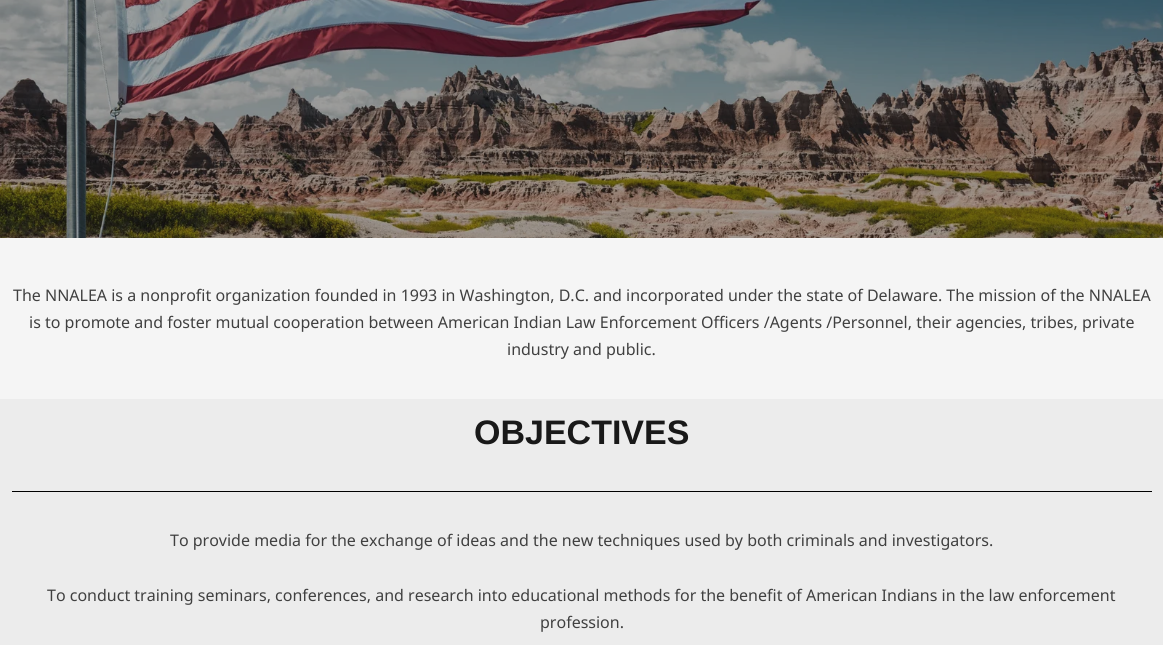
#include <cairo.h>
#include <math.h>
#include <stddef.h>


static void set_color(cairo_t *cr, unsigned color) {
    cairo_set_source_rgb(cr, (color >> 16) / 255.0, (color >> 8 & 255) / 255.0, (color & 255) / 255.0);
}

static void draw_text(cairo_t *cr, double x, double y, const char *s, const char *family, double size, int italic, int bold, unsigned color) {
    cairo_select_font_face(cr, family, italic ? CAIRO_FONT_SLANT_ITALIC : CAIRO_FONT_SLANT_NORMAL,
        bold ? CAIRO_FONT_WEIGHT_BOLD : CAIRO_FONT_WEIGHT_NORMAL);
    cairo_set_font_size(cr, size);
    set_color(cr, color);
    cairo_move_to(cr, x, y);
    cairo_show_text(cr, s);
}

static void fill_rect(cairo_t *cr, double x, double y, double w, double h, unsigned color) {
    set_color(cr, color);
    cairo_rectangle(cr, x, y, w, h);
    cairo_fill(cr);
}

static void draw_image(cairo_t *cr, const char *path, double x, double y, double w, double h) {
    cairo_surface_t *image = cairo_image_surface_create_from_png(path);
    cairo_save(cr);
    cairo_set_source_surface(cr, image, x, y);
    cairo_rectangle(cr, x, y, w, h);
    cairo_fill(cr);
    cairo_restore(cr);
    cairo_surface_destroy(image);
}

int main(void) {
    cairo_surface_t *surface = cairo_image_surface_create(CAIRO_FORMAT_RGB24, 1163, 645);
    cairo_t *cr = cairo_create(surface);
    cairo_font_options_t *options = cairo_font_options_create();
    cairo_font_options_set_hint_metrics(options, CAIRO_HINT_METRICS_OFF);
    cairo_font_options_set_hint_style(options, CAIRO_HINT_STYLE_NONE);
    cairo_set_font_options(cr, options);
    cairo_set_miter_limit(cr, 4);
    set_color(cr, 0xF5F5F5);
    cairo_paint(cr);
    draw_image(cr, "assets/img1.png", 0, 0, 1163, 238);
    draw_text(cr, 13, 301, "The NNALEA is a nonprofit organization founded in 1993 in Washington, D.C. and incorporated under the state of Delaware. The mission of the NNALEA", "Noto Sans", 16, 0, 0, 0x404040);
    draw_text(cr, 29, 328, "is to promote and foster mutual cooperation between American Indian Law Enforcement Officers /Agents /Personnel, their agencies, tribes, private", "Noto Sans", 16, 0, 0, 0x404040);
    draw_text(cr, 507, 355, "industry and public.", "Noto Sans", 16, 0, 0, 0x404040);
    fill_rect(cr, 0, 399, 1163, 246, 0xECECEC);
    draw_text(cr, 474, 444, "OBJECTIVES", "Liberation Sans", 34, 0, 1, 0x191919);
    fill_rect(cr, 12, 491, 1140, 1, 0x000000);
    draw_text(cr, 170, 546, "To provide media for the exchange of ideas and the new techniques used by both criminals and investigators.", "Noto Sans", 16, 0, 0, 0x404040);
    draw_text(cr, 47, 601, "To conduct training seminars, conferences, and research into educational methods for the benefit of American Indians in the law enforcement", "Noto Sans", 16, 0, 0, 0x404040);
    draw_text(cr, 540, 628, "profession.", "Noto Sans", 16, 0, 0, 0x404040);
    cairo_surface_write_to_png(surface, "output.png");
    cairo_font_options_destroy(options);
    cairo_destroy(cr);
    cairo_surface_destroy(surface);
    return 0;
}
